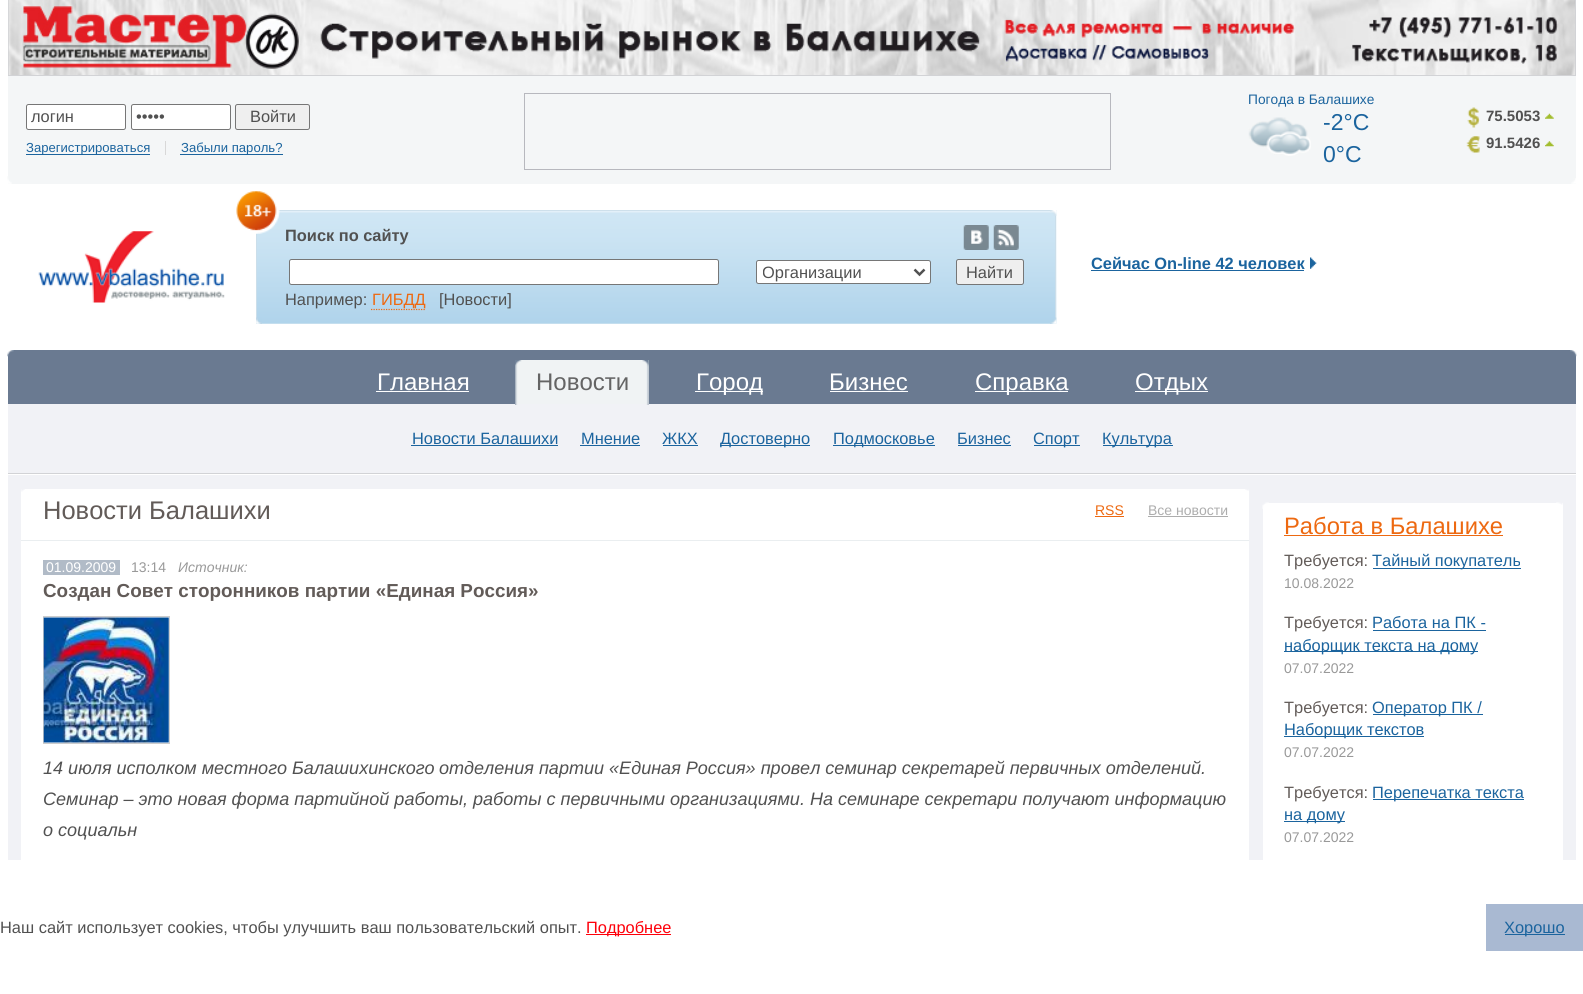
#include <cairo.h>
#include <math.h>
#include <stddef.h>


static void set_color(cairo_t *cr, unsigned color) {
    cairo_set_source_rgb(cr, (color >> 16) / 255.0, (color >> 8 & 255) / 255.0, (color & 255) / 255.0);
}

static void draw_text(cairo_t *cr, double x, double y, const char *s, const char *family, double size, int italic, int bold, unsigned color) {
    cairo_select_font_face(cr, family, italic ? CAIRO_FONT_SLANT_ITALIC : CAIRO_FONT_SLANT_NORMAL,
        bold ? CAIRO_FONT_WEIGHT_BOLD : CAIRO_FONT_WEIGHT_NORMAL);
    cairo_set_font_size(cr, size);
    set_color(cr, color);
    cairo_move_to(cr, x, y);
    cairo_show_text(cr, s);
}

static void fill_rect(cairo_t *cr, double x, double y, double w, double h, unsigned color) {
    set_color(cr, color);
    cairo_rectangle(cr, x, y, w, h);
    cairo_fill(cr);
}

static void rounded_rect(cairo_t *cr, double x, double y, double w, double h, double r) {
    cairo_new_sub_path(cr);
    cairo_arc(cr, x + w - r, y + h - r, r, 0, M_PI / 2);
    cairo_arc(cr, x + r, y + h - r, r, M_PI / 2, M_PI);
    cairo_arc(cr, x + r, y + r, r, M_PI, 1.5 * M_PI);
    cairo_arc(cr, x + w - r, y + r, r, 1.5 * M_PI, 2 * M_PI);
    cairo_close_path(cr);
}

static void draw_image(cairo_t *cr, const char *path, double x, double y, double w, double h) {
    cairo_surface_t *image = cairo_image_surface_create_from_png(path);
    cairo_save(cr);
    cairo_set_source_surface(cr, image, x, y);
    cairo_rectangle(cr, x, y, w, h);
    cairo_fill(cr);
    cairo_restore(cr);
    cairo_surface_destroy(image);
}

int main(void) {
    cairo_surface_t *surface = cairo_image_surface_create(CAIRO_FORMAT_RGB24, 1583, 994);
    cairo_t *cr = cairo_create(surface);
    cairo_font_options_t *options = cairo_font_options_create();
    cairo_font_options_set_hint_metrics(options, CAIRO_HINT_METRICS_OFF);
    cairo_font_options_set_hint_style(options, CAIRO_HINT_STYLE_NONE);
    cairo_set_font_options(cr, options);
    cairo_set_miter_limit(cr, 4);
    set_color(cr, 0xFFFFFF);
    cairo_paint(cr);
    fill_rect(cr, 1575, 0, 1, 76, 0xD2D3D6);
    fill_rect(cr, 8, 75, 1568, 1, 0xD2D3D6);
    fill_rect(cr, 8, 0, 1, 76, 0xD2D3D6);
    draw_image(cr, "assets/img1.png", 8, 0, 1567, 75);
    fill_rect(cr, 8, 76, 1568, 108, 0xF4F6F7);
    set_color(cr, 0xFFFFFF);
    rounded_rect(cr, 26.5, 104.5, 99, 25, 2);
    cairo_fill_preserve(cr);
    set_color(cr, 0x767676);
    cairo_set_line_width(cr, 1);
    cairo_stroke(cr);
    draw_text(cr, 31, 122, "логин", "Liberation Sans", 16.4, 0, 0, 0x515151);
    set_color(cr, 0xFFFFFF);
    rounded_rect(cr, 131.5, 104.5, 99, 25, 2);
    cairo_fill_preserve(cr);
    set_color(cr, 0x767676);
    cairo_stroke(cr);
    draw_text(cr, 136, 122, "•••••", "Liberation Sans", 16.4, 0, 0, 0x515151);
    set_color(cr, 0xEFEFEF);
    rounded_rect(cr, 235.5, 104.5, 74, 25, 2);
    cairo_fill_preserve(cr);
    set_color(cr, 0x767676);
    cairo_stroke(cr);
    draw_text(cr, 250, 122, "Войти", "Liberation Sans", 16.4, 0, 0, 0x515151);
    fill_rect(cr, 26, 154, 124, 1, 0x1B649E);
    draw_text(cr, 26, 152, "Зарегистрироваться", "Liberation Sans", 13.1, 0, 0, 0x1B649E);
    fill_rect(cr, 165, 141, 1, 14, 0xD8D8D8);
    fill_rect(cr, 180, 154, 103, 1, 0x1B649E);
    draw_text(cr, 181, 152, "Забыли пароль?", "Liberation Sans", 13.1, 0, 0, 0x1B649E);
    cairo_rectangle(cr, 524.5, 93.5, 586, 76);
    set_color(cr, 0xB7B8BE);
    cairo_stroke(cr);
    draw_text(cr, 1248, 104, "Погода в Балашихе", "Liberation Sans", 13.75, 0, 0, 0x1B649E);
    draw_image(cr, "assets/img2.png", 1248, 117, 63, 39);
    draw_text(cr, 1323, 130, "-2°C", "Liberation Sans", 23, 0, 0, 0x1B649E);
    draw_text(cr, 1323, 162, "0°C", "Liberation Sans", 23, 0, 0, 0x1B649E);
    draw_image(cr, "assets/img3.png", 1467, 107, 13, 21);
    draw_text(cr, 1486, 121, "75.5053", "Liberation Sans", 15, 0, 1, 0x515151);
    draw_image(cr, "assets/img4.png", 1545, 113, 9, 6);
    draw_image(cr, "assets/img5.png", 1466, 136, 14, 17);
    draw_text(cr, 1486, 148, "91.5426", "Liberation Sans", 15, 0, 1, 0x515151);
    draw_image(cr, "assets/img6.png", 1545, 141, 9, 6);
    draw_image(cr, "assets/img7.png", 7, 176, 5, 8);
    draw_image(cr, "assets/img8.png", 1571, 178, 5, 6);
    draw_image(cr, "assets/img9.png", 38, 231, 187, 72);
    draw_image(cr, "assets/img10.png", 257, 210, 800, 114);
    fill_rect(cr, 256, 233, 1, 91, 0xCBDEEA);
    fill_rect(cr, 278, 211, 777, 1, 0xE3F0F9);
    draw_image(cr, "assets/img11.png", 236, 191, 44, 43);
    fill_rect(cr, 1055, 210, 1, 114, 0xCBDEEA);
    draw_image(cr, "assets/img12.png", 1050, 210, 7, 6);
    draw_text(cr, 285, 241, "Поиск по сайту", "Liberation Sans", 16.4, 0, 1, 0x515151);
    draw_image(cr, "assets/img13.png", 963, 225, 26, 25);
    draw_image(cr, "assets/img14.png", 993, 225, 26, 25);
    set_color(cr, 0xFFFFFF);
    rounded_rect(cr, 289.5, 259.5, 429, 25, 2);
    cairo_fill_preserve(cr);
    set_color(cr, 0x767676);
    cairo_stroke(cr);
    set_color(cr, 0xFFFFFF);
    rounded_rect(cr, 756.5, 260.5, 174, 23, 2);
    cairo_fill_preserve(cr);
    set_color(cr, 0x767676);
    cairo_stroke(cr);
    cairo_new_path(cr);
    cairo_move_to(cr, 914.5, 269.5);
    cairo_line_to(cr, 919.5, 274.5);
    cairo_line_to(cr, 924.5, 269.5);
    set_color(cr, 0x515151);
    cairo_set_line_width(cr, 2.5);
    cairo_stroke(cr);
    cairo_save(cr);
    cairo_rectangle(cr, 763, 261, 147, 22);
    cairo_clip(cr);
    draw_text(cr, 762, 278, "Организации", "Liberation Sans", 16.4, 0, 0, 0x515151);
    cairo_restore(cr);
    set_color(cr, 0xEFEFEF);
    rounded_rect(cr, 956.5, 259.5, 67, 25, 2);
    cairo_fill_preserve(cr);
    set_color(cr, 0x767676);
    cairo_set_line_width(cr, 1);
    cairo_stroke(cr);
    draw_text(cr, 966, 278, "Найти", "Liberation Sans", 16.4, 0, 0, 0x515151);
    draw_text(cr, 285, 305, "Например:", "Liberation Sans", 16.4, 0, 0, 0x515151);
    cairo_new_path(cr);
    cairo_move_to(cr, 371, 309.5);
    cairo_line_to(cr, 425, 309.5);
    set_color(cr, 0xED6911);
    cairo_set_line_width(cr, 1.2);
    cairo_set_dash(cr, (double[]){1.25, 1.25}, 2, 0);
    cairo_stroke(cr);
    draw_text(cr, 372, 305, "ГИБДД", "Liberation Sans", 16.4, 0, 0, 0xED6911);
    draw_text(cr, 439, 305, "[Новости]", "Liberation Sans", 16.4, 0, 0, 0x515151);
    draw_image(cr, "assets/img15.png", 256, 317, 6, 7);
    draw_image(cr, "assets/img16.png", 1050, 317, 7, 7);
    draw_text(cr, 1091, 269, "Сейчас On-line 42 человек", "Liberation Sans", 16.4, 0, 1, 0x1B649E);
    fill_rect(cr, 1091, 270, 213, 1, 0x1B649E);
    draw_image(cr, "assets/img17.png", 1310, 257, 7, 12);
    fill_rect(cr, 8, 350, 1568, 54, 0x6A7A91);
    draw_image(cr, "assets/img18.png", 7, 350, 7, 7);
    draw_image(cr, "assets/img19.png", 1570, 350, 7, 7);
    draw_text(cr, 377, 390, "Главная", "Liberation Sans", 24, 0, 0, 0xFFFFFF);
    fill_rect(cr, 376, 391, 93, 1, 0xFFFFFF);
    fill_rect(cr, 517, 360, 132, 44, 0xF0F3F4);
    fill_rect(cr, 8, 404, 1568, 69, 0xF1F2F6);
    draw_image(cr, "assets/img20.png", 515, 360, 7, 45);
    draw_text(cr, 536, 390, "Новости", "Liberation Sans", 24, 0, 0, 0x646464);
    draw_image(cr, "assets/img21.png", 642, 360, 7, 45);
    fill_rect(cr, 695, 391, 68, 1, 0xFFFFFF);
    draw_text(cr, 696, 390, "Город", "Liberation Sans", 24, 0, 0, 0xFFFFFF);
    draw_text(cr, 829, 390, "Бизнес", "Liberation Sans", 24, 0, 0, 0xFFFFFF);
    fill_rect(cr, 830, 391, 78, 1, 0xFFFFFF);
    fill_rect(cr, 975, 391, 93, 1, 0xFFFFFF);
    draw_text(cr, 975, 390, "Справка", "Liberation Sans", 24, 0, 0, 0xFFFFFF);
    fill_rect(cr, 1135, 391, 73, 1, 0xFFFFFF);
    draw_text(cr, 1135, 390, "Отдых", "Liberation Sans", 24, 0, 0, 0xFFFFFF);
    fill_rect(cr, 8, 473, 1568, 1, 0xD2D3D6);
    draw_text(cr, 412, 444, "Новости Балашихи", "Liberation Sans", 16.4, 0, 0, 0x1B649E);
    fill_rect(cr, 411, 445, 147, 1, 0x1B649E);
    draw_text(cr, 581, 444, "Мнение", "Liberation Sans", 16.4, 0, 0, 0x1B649E);
    fill_rect(cr, 580, 445, 60, 1, 0x1B649E);
    draw_text(cr, 662, 444, "ЖКХ", "Liberation Sans", 16.4, 0, 0, 0x1B649E);
    fill_rect(cr, 663, 445, 35, 1, 0x1B649E);
    fill_rect(cr, 720, 445, 90, 1, 0x1B649E);
    draw_text(cr, 720, 444, "Достоверно", "Liberation Sans", 16.4, 0, 0, 0x1B649E);
    fill_rect(cr, 833, 445, 102, 1, 0x1B649E);
    draw_text(cr, 833, 444, "Подмосковье", "Liberation Sans", 16.4, 0, 0, 0x1B649E);
    draw_text(cr, 957, 444, "Бизнес", "Liberation Sans", 16.4, 0, 0, 0x1B649E);
    fill_rect(cr, 958, 445, 53, 1, 0x1B649E);
    fill_rect(cr, 1034, 445, 46, 1, 0x1B649E);
    draw_text(cr, 1033, 444, "Спорт", "Liberation Sans", 16.4, 0, 0, 0x1B649E);
    fill_rect(cr, 1103, 445, 70, 1, 0x1B649E);
    draw_text(cr, 1102, 444, "Культура", "Liberation Sans", 16.4, 0, 0, 0x1B649E);
    fill_rect(cr, 8, 475, 1568, 385, 0xF1F2F6);
    fill_rect(cr, 21, 489, 1542, 371, 0xFFFFFF);
    draw_image(cr, "assets/img22.png", 21, 489, 4, 3);
    draw_image(cr, "assets/img23.png", 1245, 489, 4, 2);
    fill_rect(cr, 21, 540, 1228, 1, 0xEAEEF0);
    draw_text(cr, 43, 519, "Новости Балашихи", "Liberation Sans", 25.5, 0, 0, 0x625B58);
    draw_text(cr, 1095, 515, "RSS", "Liberation Sans", 14, 0, 0, 0xED6911);
    fill_rect(cr, 1095, 516, 29, 1, 0xED6911);
    draw_text(cr, 1148, 515, "Все новости", "Liberation Sans", 14, 0, 0, 0xADADAD);
    fill_rect(cr, 1148, 516, 80, 1, 0xADADAD);
    fill_rect(cr, 43, 560, 77, 15, 0xB1BBC7);
    draw_text(cr, 46, 572, "01.09.2009", "Liberation Sans", 14, 0, 0, 0xFFFFFF);
    draw_text(cr, 131, 572, "13:14", "Liberation Sans", 14, 0, 0, 0x999999);
    draw_text(cr, 178, 572, "Источник:", "Liberation Sans", 14, 1, 0, 0x999999);
    draw_text(cr, 43, 597, "Создан Совет сторонников партии «Единая Россия»", "Liberation Sans", 18.85, 0, 1, 0x625B58);
    cairo_rectangle(cr, 43.5, 616.5, 126, 127);
    set_color(cr, 0xCCCCCC);
    cairo_set_line_width(cr, 1);
    cairo_set_dash(cr, NULL, 0, 0);
    cairo_stroke(cr);
    draw_image(cr, "assets/img24.png", 43, 617, 126, 126);
    draw_text(cr, 43, 774, "14 июля исполком местного Балашихинского", "Liberation Sans", 18.05, 1, 0, 0x515151);
    draw_text(cr, 439, 774, "отделения партии «Единая Россия» провел семинар секретарей первичных отделений.", "Liberation Sans", 18.05, 1, 0, 0x515151);
    draw_text(cr, 43, 805, "Семинар – это новая форма партийной работы, работы с первичными организациями. На семинаре секретари получают информацию", "Liberation Sans", 18.05, 1, 0, 0x515151);
    draw_text(cr, 43, 836, "о социальн", "Liberation Sans", 18.05, 1, 0, 0x515151);
    fill_rect(cr, 1249, 489, 14, 371, 0xF1F2F6);
    fill_rect(cr, 1263, 489, 300, 14, 0xF1F2F6);
    draw_image(cr, "assets/img25.png", 1262, 502, 7, 7);
    draw_image(cr, "assets/img26.png", 1556, 502, 7, 3);
    draw_text(cr, 1284, 534, "Работа в Балашихе", "Liberation Sans", 23.75, 0, 0, 0xED6911);
    fill_rect(cr, 1284, 535, 219, 1, 0xED6911);
    draw_text(cr, 1284, 566, "Требуется:", "Liberation Sans", 16.4, 0, 0, 0x625B58);
    fill_rect(cr, 1373, 568, 148, 1, 0x1B649E);
    draw_text(cr, 1372, 566, "Тайный покупатель", "Liberation Sans", 16.4, 0, 0, 0x1B649E);
    draw_text(cr, 1284, 588, "10.08.2022", "Liberation Sans", 14, 0, 0, 0x999999);
    draw_text(cr, 1284, 628, "Требуется:", "Liberation Sans", 16.4, 0, 0, 0x625B58);
    draw_text(cr, 1372, 628, "Работа на ПК -", "Liberation Sans", 16.4, 0, 0, 0x1B649E);
    fill_rect(cr, 1373, 630, 113, 1, 0x1B649E);
    fill_rect(cr, 1284, 651, 194, 1, 0x1B649E);
    draw_text(cr, 1284, 651, "наборщик текста на дому", "Liberation Sans", 16.4, 0, 0, 0x1B649E);
    draw_text(cr, 1284, 673, "07.07.2022", "Liberation Sans", 14, 0, 0, 0x999999);
    draw_text(cr, 1284, 713, "Требуется:", "Liberation Sans", 16.4, 0, 0, 0x625B58);
    fill_rect(cr, 1373, 714, 110, 1, 0x1B649E);
    draw_text(cr, 1372, 713, "Оператор ПК /", "Liberation Sans", 16.4, 0, 0, 0x1B649E);
    fill_rect(cr, 1284, 736, 140, 1, 0x1B649E);
    draw_text(cr, 1284, 735, "Наборщик текстов", "Liberation Sans", 16.4, 0, 0, 0x1B649E);
    draw_text(cr, 1284, 757, "07.07.2022", "Liberation Sans", 14, 0, 0, 0x999999);
    draw_text(cr, 1284, 798, "Требуется:", "Liberation Sans", 16.4, 0, 0, 0x625B58);
    fill_rect(cr, 1373, 799, 151, 1, 0x1B649E);
    draw_text(cr, 1372, 798, "Перепечатка текста", "Liberation Sans", 16.4, 0, 0, 0x1B649E);
    fill_rect(cr, 1284, 821, 61, 1, 0x1B649E);
    draw_text(cr, 1284, 820, "на дому", "Liberation Sans", 16.4, 0, 0, 0x1B649E);
    draw_text(cr, 1284, 842, "07.07.2022", "Liberation Sans", 14, 0, 0, 0x999999);
    draw_text(cr, 0, 933, "Наш сайт использует cookies, чтобы улучшить ваш пользовательский опыт.", "Liberation Sans", 16.4, 0, 0, 0x515151);
    fill_rect(cr, 586, 934, 85, 1, 0xFE000A);
    draw_text(cr, 586, 933, "Подробнее", "Liberation Sans", 16.4, 0, 0, 0xFE000A);
    fill_rect(cr, 1486, 904, 97, 47, 0xA9B9D2);
    fill_rect(cr, 1505, 934, 60, 1, 0x1B649E);
    draw_text(cr, 1504, 933, "Хорошо", "Liberation Sans", 16.4, 0, 0, 0x1B649E);
    cairo_surface_write_to_png(surface, "output.png");
    cairo_font_options_destroy(options);
    cairo_destroy(cr);
    cairo_surface_destroy(surface);
    return 0;
}
